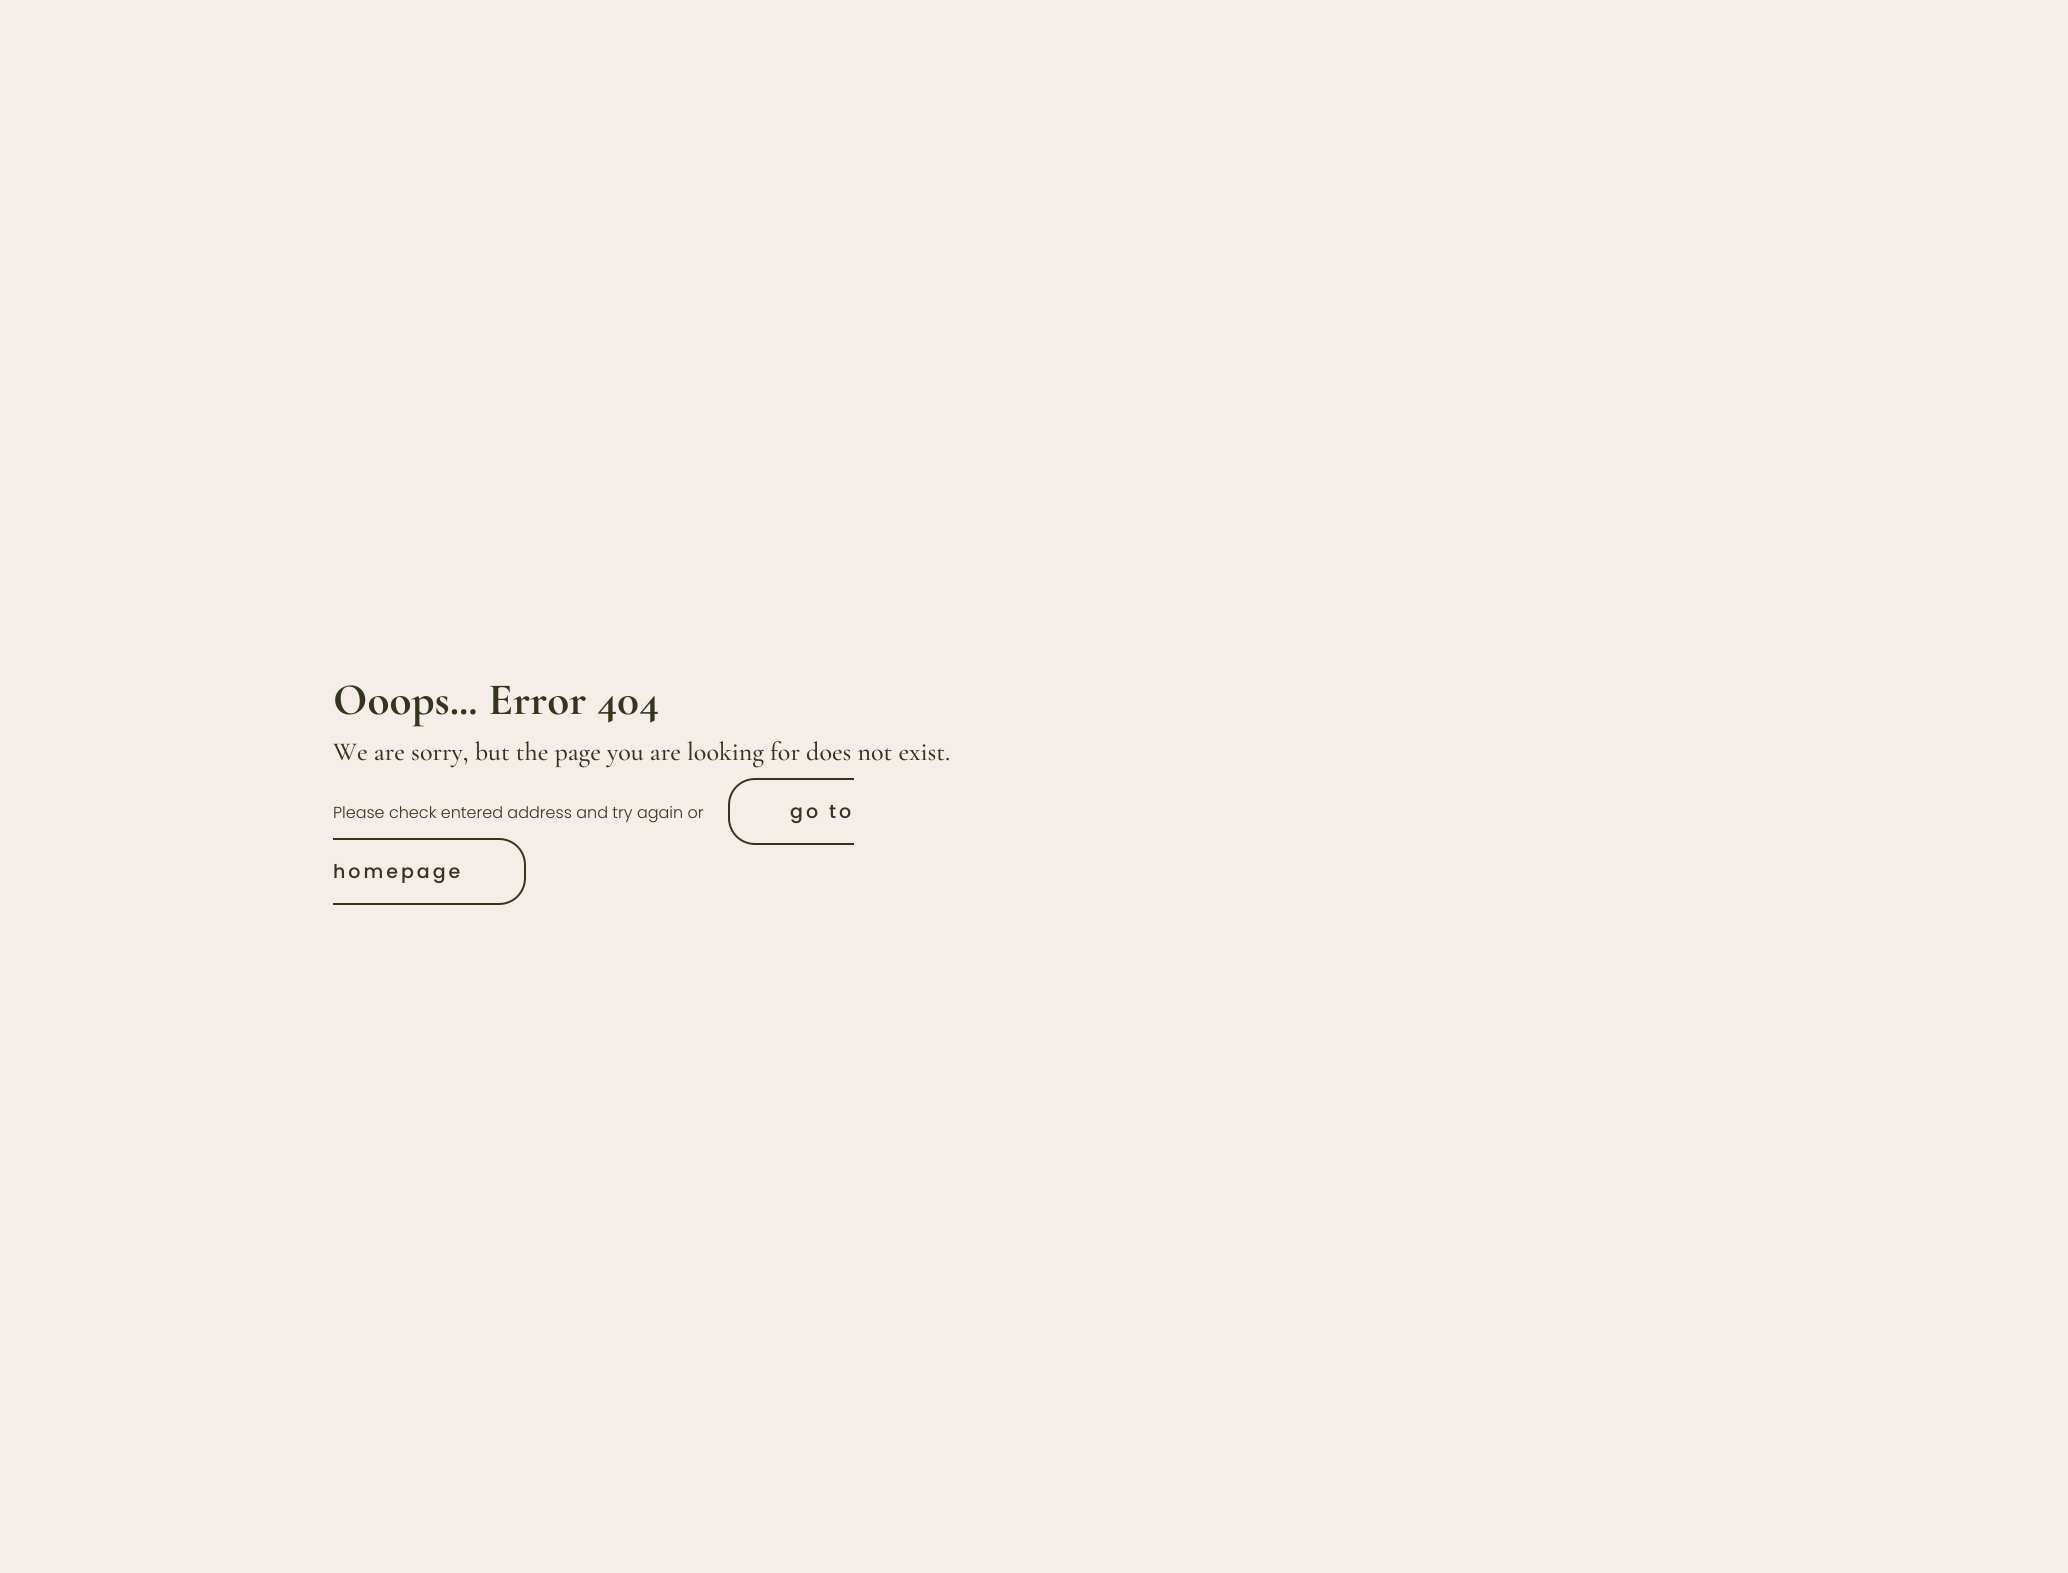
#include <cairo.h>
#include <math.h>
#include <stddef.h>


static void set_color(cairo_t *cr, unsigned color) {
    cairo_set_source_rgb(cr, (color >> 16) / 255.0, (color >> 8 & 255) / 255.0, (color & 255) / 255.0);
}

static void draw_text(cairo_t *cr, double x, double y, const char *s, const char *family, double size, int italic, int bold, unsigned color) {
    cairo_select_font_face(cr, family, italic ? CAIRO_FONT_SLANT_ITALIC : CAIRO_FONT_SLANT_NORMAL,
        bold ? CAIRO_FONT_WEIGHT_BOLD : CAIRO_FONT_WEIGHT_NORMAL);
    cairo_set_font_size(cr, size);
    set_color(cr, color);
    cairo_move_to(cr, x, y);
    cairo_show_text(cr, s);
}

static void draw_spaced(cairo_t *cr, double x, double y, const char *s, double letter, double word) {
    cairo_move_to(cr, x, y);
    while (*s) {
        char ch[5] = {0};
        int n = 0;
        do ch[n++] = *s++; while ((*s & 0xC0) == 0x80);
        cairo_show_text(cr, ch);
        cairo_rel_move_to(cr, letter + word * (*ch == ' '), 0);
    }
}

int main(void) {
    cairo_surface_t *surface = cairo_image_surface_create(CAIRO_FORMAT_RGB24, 2068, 1573);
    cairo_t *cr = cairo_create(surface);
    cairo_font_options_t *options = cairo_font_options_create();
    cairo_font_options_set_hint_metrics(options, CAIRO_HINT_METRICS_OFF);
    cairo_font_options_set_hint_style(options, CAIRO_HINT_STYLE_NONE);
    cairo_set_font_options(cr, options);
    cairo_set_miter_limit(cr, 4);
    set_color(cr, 0xF5EDE7);
    cairo_paint(cr);
    draw_text(cr, 333, 714, "Ooops... Error 404", "Cormorant Garamond", 45, 0, 1, 0x31361D);
    draw_text(cr, 333, 760, "We are sorry, but the page you are looking for does not exist.", "Cormorant Garamond Medium", 26, 0, 0, 0x31361D);
    draw_text(cr, 333, 818, "Please check entered address and try again or", "Poppins Light", 16, 0, 0, 0x31361D);
    cairo_set_fill_rule(cr, CAIRO_FILL_RULE_EVEN_ODD);
    cairo_new_path(cr);
    cairo_move_to(cr, 755, 778);
    cairo_line_to(cr, 854, 778);
    cairo_line_to(cr, 854, 845);
    cairo_line_to(cr, 755, 845);
    cairo_curve_to(cr, 740, 845, 728, 833, 728, 818);
    cairo_line_to(cr, 728, 805);
    cairo_curve_to(cr, 728, 790, 740, 778, 755, 778);
    cairo_close_path(cr);
    cairo_move_to(cr, 755, 780);
    cairo_line_to(cr, 854, 780);
    cairo_line_to(cr, 854, 843);
    cairo_line_to(cr, 755, 843);
    cairo_curve_to(cr, 741, 843, 730, 832, 730, 818);
    cairo_line_to(cr, 730, 805);
    cairo_curve_to(cr, 730, 791, 741, 780, 755, 780);
    cairo_close_path(cr);
    cairo_fill(cr);
    cairo_select_font_face(cr, "Poppins Medium", CAIRO_FONT_SLANT_NORMAL, CAIRO_FONT_WEIGHT_NORMAL);
    cairo_set_font_size(cr, 19);
    draw_spaced(cr, 790, 818, "go to", 3, 0);
    cairo_new_path(cr);
    cairo_move_to(cr, 333, 838);
    cairo_line_to(cr, 499, 838);
    cairo_curve_to(cr, 514, 838, 526, 850, 526, 865);
    cairo_line_to(cr, 526, 878);
    cairo_curve_to(cr, 526, 893, 514, 905, 499, 905);
    cairo_line_to(cr, 333, 905);
    cairo_close_path(cr);
    cairo_move_to(cr, 333, 840);
    cairo_line_to(cr, 499, 840);
    cairo_curve_to(cr, 513, 840, 524, 851, 524, 865);
    cairo_line_to(cr, 524, 878);
    cairo_curve_to(cr, 524, 892, 513, 903, 499, 903);
    cairo_line_to(cr, 333, 903);
    cairo_close_path(cr);
    cairo_fill(cr);
    draw_spaced(cr, 333, 878, "homepage", 3, 0);
    cairo_surface_write_to_png(surface, "output.png");
    cairo_font_options_destroy(options);
    cairo_destroy(cr);
    cairo_surface_destroy(surface);
    return 0;
}
